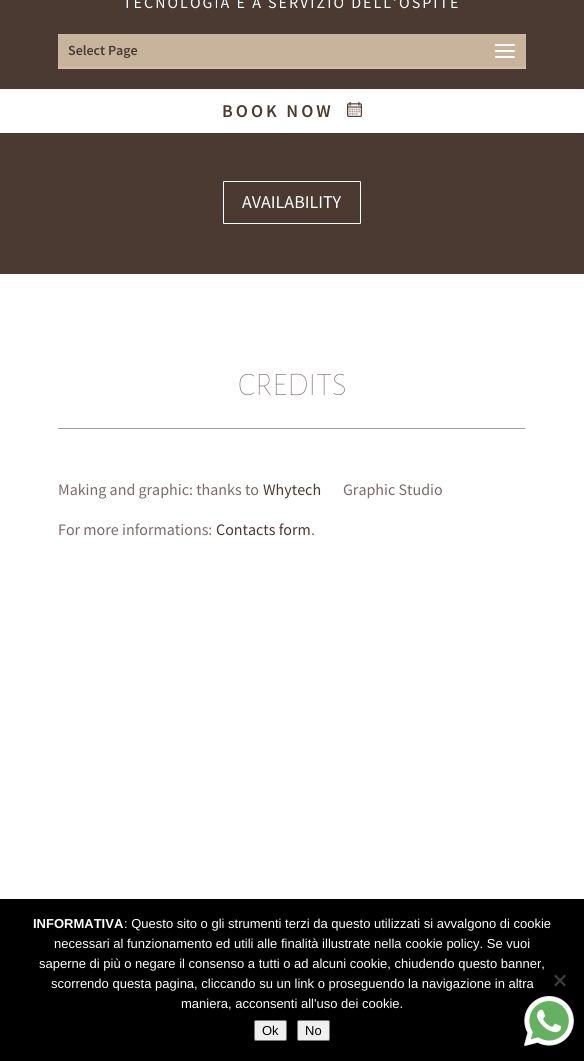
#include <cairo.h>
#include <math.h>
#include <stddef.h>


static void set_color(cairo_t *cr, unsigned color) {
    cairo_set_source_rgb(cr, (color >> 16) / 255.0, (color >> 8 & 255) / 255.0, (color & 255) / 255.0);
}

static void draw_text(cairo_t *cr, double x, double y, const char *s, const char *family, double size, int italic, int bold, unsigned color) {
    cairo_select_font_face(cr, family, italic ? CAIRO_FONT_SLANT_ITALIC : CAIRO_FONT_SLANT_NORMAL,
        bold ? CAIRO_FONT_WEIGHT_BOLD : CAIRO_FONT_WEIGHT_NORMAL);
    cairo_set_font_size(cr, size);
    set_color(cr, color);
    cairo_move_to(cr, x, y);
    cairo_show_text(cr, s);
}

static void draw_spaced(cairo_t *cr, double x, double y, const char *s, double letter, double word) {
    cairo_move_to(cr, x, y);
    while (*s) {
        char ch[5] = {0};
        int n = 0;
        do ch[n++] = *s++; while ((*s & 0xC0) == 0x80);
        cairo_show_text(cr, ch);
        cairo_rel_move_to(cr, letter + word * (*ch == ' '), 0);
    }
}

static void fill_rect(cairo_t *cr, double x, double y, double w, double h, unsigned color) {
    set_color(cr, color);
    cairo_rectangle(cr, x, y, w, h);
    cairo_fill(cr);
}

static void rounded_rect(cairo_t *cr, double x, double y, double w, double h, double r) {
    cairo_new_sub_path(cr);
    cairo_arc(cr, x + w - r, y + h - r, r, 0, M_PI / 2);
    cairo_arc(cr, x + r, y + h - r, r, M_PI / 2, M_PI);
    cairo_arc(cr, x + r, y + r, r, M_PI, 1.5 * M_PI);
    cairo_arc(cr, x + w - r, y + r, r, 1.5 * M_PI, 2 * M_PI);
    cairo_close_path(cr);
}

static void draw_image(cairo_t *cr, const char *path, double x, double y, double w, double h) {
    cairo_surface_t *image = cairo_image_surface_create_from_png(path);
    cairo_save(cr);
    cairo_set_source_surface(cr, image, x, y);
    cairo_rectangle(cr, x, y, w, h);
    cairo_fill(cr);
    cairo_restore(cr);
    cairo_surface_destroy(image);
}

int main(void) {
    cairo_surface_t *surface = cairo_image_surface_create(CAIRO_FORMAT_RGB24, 584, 1061);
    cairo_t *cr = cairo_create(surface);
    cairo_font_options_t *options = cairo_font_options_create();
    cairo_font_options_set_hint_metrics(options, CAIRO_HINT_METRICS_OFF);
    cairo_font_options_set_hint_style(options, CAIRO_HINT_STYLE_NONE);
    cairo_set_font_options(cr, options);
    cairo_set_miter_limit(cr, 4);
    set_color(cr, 0xFFFFFF);
    cairo_paint(cr);
    fill_rect(cr, 0, 133, 584, 1, 0x43342C);
    fill_rect(cr, 0, 0, 584, 89, 0x4A3A31);
    cairo_select_font_face(cr, "Source Sans Pro", CAIRO_FONT_SLANT_NORMAL, CAIRO_FONT_WEIGHT_NORMAL);
    cairo_set_font_size(cr, 16);
    set_color(cr, 0xFFFFFF);
    draw_spaced(cr, 123, 8, "TECNOLOGIA È A SERVIZIO DELL’OSPITE", 2, 0);
    fill_rect(cr, 58, 34, 468, 35, 0xD3BDA4);
    set_color(cr, 0xC8B49C);
    rounded_rect(cr, 58, 34, 468, 33, 5);
    cairo_fill(cr);
    draw_text(cr, 68, 55, "Select Page", "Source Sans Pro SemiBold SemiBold", 14, 0, 0, 0x4A3A31);
    draw_image(cr, "assets/img1.png", 495, 44, 20, 14);
    cairo_set_font_size(cr, 18);
    draw_spaced(cr, 222, 117, "BOOK NOW", 3, 0);
    draw_image(cr, "assets/img2.png", 347, 102, 15, 15);
    fill_rect(cr, 0, 134, 584, 140, 0x4A3A31);
    rounded_rect(cr, 223.5, 181.5, 137, 42, 0.5);
    set_color(cr, 0xFFFFFF);
    cairo_set_line_width(cr, 1);
    cairo_stroke(cr);
    draw_text(cr, 242, 208, "AVAILABILITY", "Source Sans Pro", 18, 0, 0, 0xFFFFFF);
    draw_text(cr, 238, 395, "CREDITS", "Alegreya Sans Thin", 33, 0, 0, 0x7B6A6A);
    fill_rect(cr, 58, 428, 468, 1, 0x9F9F9F);
    fill_rect(cr, 525, 428, 1, 1, 0xEEEEEE);
    draw_text(cr, 58, 495, "Making and graphic: thanks to", "Source Sans Pro", 16, 0, 0, 0x7B6A6A);
    draw_text(cr, 263, 495, "Whytech", "Source Sans Pro", 16, 0, 0, 0x4A3A31);
    draw_text(cr, 343, 495, "Graphic Studio", "Source Sans Pro", 16, 0, 0, 0x7B6A6A);
    draw_text(cr, 58, 535, "For more informations:", "Source Sans Pro", 16, 0, 0, 0x7B6A6A);
    draw_text(cr, 216, 535, "Contacts form", "Source Sans Pro", 16, 0, 0, 0x4A3A31);
    draw_text(cr, 311, 535, ".", "Source Sans Pro", 16, 0, 0, 0x7B6A6A);
    fill_rect(cr, 0, 899, 584, 162, 0x000000);
    draw_image(cr, "assets/img3.png", 524, 996, 50, 50);
    draw_text(cr, 33, 928, "INFORMATIVA", "Liberation Sans", 13, 0, 1, 0xFFFFFF);
    draw_text(cr, 124, 928, ": Questo sito o gli strumenti terzi da questo utilizzati si avvalgono di cookie", "Liberation Sans", 13, 0, 0, 0xFFFFFF);
    draw_text(cr, 54, 948, "necessari al funzionamento ed utili alle finalità illustrate nella cookie policy. Se vuoi", "Liberation Sans", 13, 0, 0, 0xFFFFFF);
    draw_text(cr, 39, 968, "saperne di più o negare il consenso a tutti o ad alcuni cookie, chiudendo questo banner,", "Liberation Sans", 13, 0, 0, 0xFFFFFF);
    draw_text(cr, 51, 988, "scorrendo questa pagina, cliccando su un link o proseguendo la navigazione in altra", "Liberation Sans", 13, 0, 0, 0xFFFFFF);
    draw_text(cr, 181, 1008, "maniera, acconsenti all'uso dei cookie.", "Liberation Sans", 13, 0, 0, 0xFFFFFF);
    set_color(cr, 0x404040);
    cairo_new_path(cr);
    cairo_move_to(cr, 564.5, 974.5);
    cairo_line_to(cr, 566, 976);
    cairo_line_to(cr, 555.5, 986.5);
    cairo_line_to(cr, 554, 985);
    cairo_close_path(cr);
    cairo_fill(cr);
    cairo_new_path(cr);
    cairo_move_to(cr, 554, 976);
    cairo_line_to(cr, 555.5, 974.5);
    cairo_line_to(cr, 566, 985);
    cairo_line_to(cr, 564.5, 986.5);
    cairo_close_path(cr);
    cairo_fill(cr);
    set_color(cr, 0xEFEFEF);
    rounded_rect(cr, 254.5, 1020.5, 32, 20, 1.5);
    cairo_fill_preserve(cr);
    set_color(cr, 0x767676);
    cairo_stroke(cr);
    draw_text(cr, 262, 1035, "Ok", "Liberation Sans", 13, 0, 0, 0x000000);
    set_color(cr, 0xEFEFEF);
    rounded_rect(cr, 297.5, 1020.5, 32, 20, 1.5);
    cairo_fill_preserve(cr);
    set_color(cr, 0x767676);
    cairo_stroke(cr);
    draw_text(cr, 305, 1035, "No", "Liberation Sans", 13, 0, 0, 0x000000);
    cairo_surface_write_to_png(surface, "output.png");
    cairo_font_options_destroy(options);
    cairo_destroy(cr);
    cairo_surface_destroy(surface);
    return 0;
}
